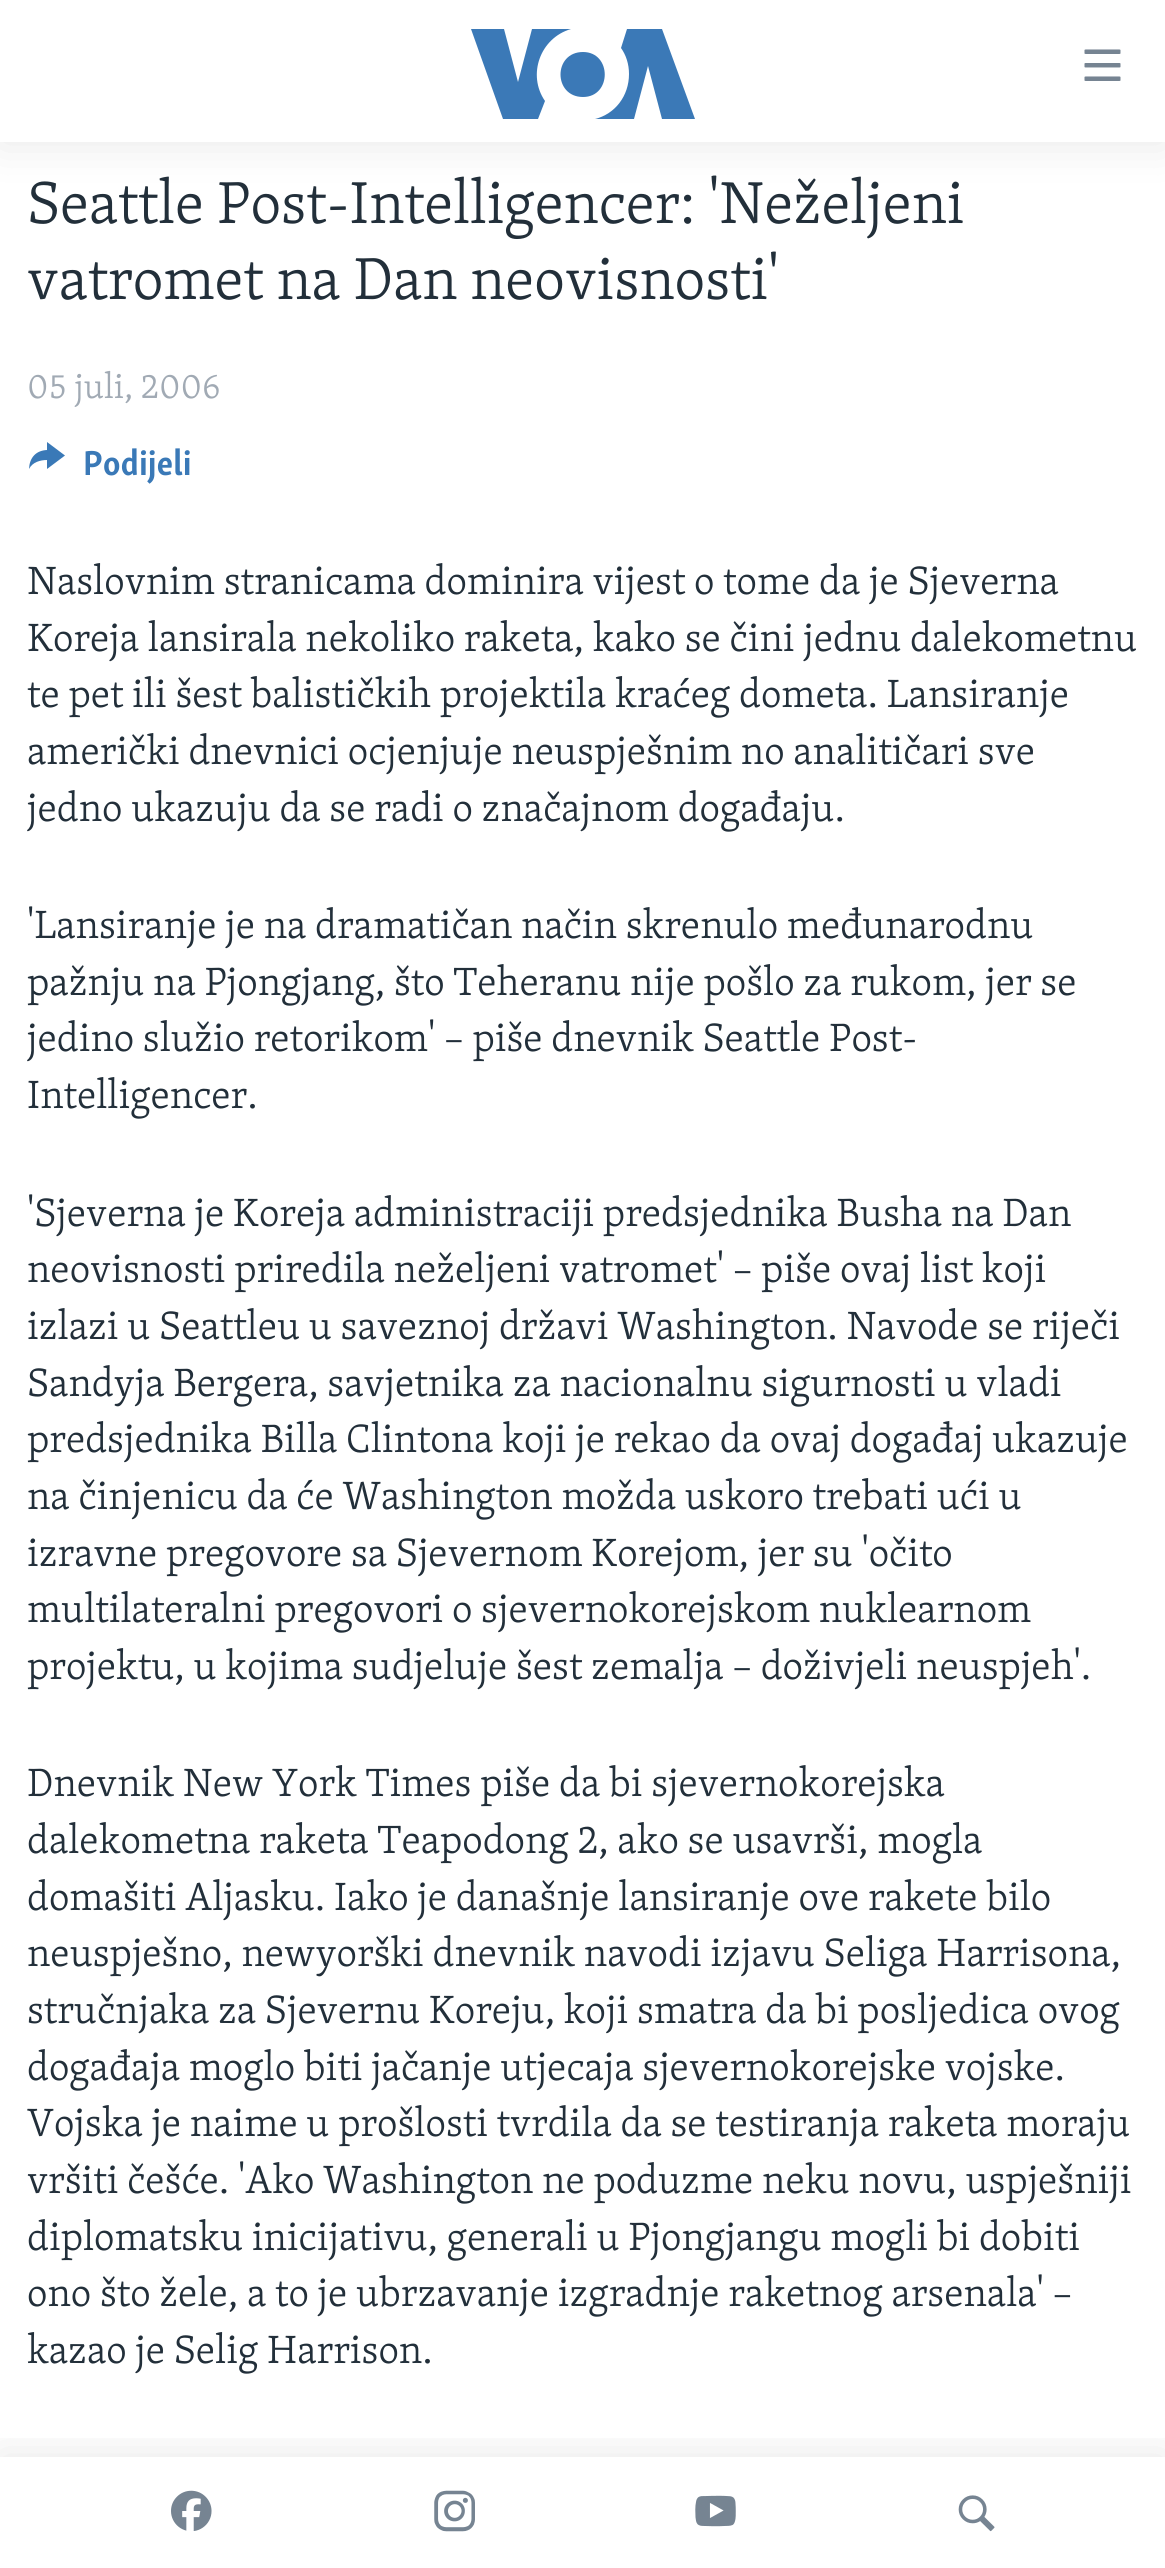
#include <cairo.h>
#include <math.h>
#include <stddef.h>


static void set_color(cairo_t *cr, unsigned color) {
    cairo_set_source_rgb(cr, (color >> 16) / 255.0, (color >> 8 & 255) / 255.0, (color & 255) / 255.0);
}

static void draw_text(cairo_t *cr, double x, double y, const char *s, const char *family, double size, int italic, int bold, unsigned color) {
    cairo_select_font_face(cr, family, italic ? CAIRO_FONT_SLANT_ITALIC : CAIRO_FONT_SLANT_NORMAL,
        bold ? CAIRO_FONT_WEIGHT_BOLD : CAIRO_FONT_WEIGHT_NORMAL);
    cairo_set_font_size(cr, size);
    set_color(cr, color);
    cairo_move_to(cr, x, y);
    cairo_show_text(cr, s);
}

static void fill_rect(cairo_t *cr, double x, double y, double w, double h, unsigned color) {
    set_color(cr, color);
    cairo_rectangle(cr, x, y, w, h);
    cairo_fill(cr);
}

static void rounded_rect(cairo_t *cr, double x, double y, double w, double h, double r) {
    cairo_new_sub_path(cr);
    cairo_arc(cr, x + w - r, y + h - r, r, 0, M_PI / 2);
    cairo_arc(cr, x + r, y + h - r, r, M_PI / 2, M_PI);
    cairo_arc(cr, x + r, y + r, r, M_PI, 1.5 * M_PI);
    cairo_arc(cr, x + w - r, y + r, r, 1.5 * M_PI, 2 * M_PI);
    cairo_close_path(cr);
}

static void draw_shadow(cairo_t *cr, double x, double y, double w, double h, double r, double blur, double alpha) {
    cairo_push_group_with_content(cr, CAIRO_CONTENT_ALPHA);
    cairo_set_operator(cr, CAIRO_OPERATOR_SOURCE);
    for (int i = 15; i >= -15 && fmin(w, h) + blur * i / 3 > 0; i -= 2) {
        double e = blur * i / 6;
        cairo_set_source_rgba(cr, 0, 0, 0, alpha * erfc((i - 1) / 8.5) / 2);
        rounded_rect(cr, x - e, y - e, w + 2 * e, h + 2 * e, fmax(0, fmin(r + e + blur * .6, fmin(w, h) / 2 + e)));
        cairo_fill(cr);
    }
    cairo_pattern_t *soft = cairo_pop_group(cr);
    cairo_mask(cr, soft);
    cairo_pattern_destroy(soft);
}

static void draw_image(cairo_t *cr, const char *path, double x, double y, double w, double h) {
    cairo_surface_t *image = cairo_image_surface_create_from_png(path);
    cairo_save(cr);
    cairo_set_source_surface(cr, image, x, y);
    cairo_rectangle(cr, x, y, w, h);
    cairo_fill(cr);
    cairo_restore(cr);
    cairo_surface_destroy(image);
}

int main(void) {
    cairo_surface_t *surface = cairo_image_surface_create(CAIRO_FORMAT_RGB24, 1165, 2568);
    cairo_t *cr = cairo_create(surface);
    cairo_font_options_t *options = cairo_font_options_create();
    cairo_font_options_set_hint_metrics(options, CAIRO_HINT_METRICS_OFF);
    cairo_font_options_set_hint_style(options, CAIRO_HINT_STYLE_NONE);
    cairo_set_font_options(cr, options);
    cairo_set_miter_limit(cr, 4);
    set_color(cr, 0xFFFFFF);
    cairo_paint(cr);
    set_color(cr, 0x000000);
    draw_shadow(cr, 0, 0, 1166, 142, 0, 22.5, 0.1);
    fill_rect(cr, 0, 0, 1165, 142, 0xFFFFFF);
    set_color(cr, 0x3B79B7);
    cairo_new_path(cr);
    cairo_move_to(cr, 545, 101);
    cairo_line_to(cr, 538, 119);
    cairo_line_to(cr, 503, 119);
    cairo_line_to(cr, 471, 29);
    cairo_line_to(cr, 504, 29);
    cairo_line_to(cr, 518, 82);
    cairo_line_to(cr, 532, 29);
    cairo_line_to(cr, 571, 29);
    cairo_curve_to(cr, 540, 38, 527, 75, 545, 101);
    cairo_close_path(cr);
    cairo_move_to(cr, 583, 52);
    cairo_curve_to(cr, 553, 52, 553, 97, 583, 97);
    cairo_curve_to(cr, 612, 97, 612, 52, 583, 52);
    cairo_close_path(cr);
    cairo_move_to(cr, 629, 74);
    cairo_curve_to(cr, 629, 96, 615, 114, 595, 119);
    cairo_line_to(cr, 634, 119);
    cairo_line_to(cr, 648, 66);
    cairo_line_to(cr, 662, 119);
    cairo_line_to(cr, 695, 119);
    cairo_line_to(cr, 662, 29);
    cairo_line_to(cr, 627, 29);
    cairo_line_to(cr, 621, 48);
    cairo_curve_to(cr, 626, 55, 629, 64, 629, 74);
    cairo_close_path(cr);
    cairo_fill(cr);
    draw_image(cr, "assets/img1.png", 1084, 49, 37, 32);
    cairo_save(cr);
    cairo_rectangle(cr, 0, 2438, 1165, 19);
    cairo_clip(cr);
    set_color(cr, 0x000000);
    draw_shadow(cr, 0, 2457, 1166, 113, 0, 22.5, 0.1);
    cairo_restore(cr);
    draw_image(cr, "assets/img2.png", 171, 2490, 41, 41);
    draw_image(cr, "assets/img3.png", 434, 2490, 41, 42);
    draw_image(cr, "assets/img4.png", 695, 2495, 41, 32);
    draw_image(cr, "assets/img5.png", 958, 2495, 37, 37);
    draw_text(cr, 27, 223, "Seattle Post-Intelligencer: 'Neželjeni", "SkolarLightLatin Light", 60.75, 0, 0, 0x222F3A);
    draw_text(cr, 27, 299, "vatromet na Dan neovisnosti'", "SkolarLightLatin Light", 60.75, 0, 0, 0x222F3A);
    draw_text(cr, 27, 398, "05 juli, 2006", "SkolarLightLatin Light", 35.5, 0, 0, 0xA1AAB4);
    set_color(cr, 0x3A79B7);
    cairo_new_path(cr);
    cairo_move_to(cr, 29, 469);
    cairo_curve_to(cr, 29.5, 457.5, 36, 450.5, 47, 450);
    cairo_line_to(cr, 47, 442);
    cairo_line_to(cr, 65, 455.5);
    cairo_line_to(cr, 47, 469);
    cairo_line_to(cr, 47, 460);
    cairo_curve_to(cr, 40.5, 460, 32.5, 462, 29, 469);
    cairo_close_path(cr);
    cairo_fill(cr);
    draw_text(cr, 83, 475, "Podijeli", "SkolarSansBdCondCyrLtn", 35.5, 0, 1, 0x3A79B7);
    draw_text(cr, 27, 594, "Naslovnim stranicama dominira vijest o tome da je Sjeverna", "SkolarLightLatin Light", 40.5, 0, 0, 0x222F3A);
    draw_text(cr, 27, 651, "Koreja lansirala nekoliko raketa, kako se čini jednu dalekometnu", "SkolarLightLatin Light", 40.5, 0, 0, 0x222F3A);
    draw_text(cr, 27, 707, "te pet ili šest balističkih projektila kraćeg dometa. Lansiranje", "SkolarLightLatin Light", 40.5, 0, 0, 0x222F3A);
    draw_text(cr, 27, 764, "američki dnevnici ocjenjuje neuspješnim no analitičari sve", "SkolarLightLatin Light", 40.5, 0, 0, 0x222F3A);
    draw_text(cr, 27, 821, "jedno ukazuju da se radi o značajnom događaju.", "SkolarLightLatin Light", 40.5, 0, 0, 0x222F3A);
    draw_text(cr, 27, 938, "'Lansiranje je na dramatičan način skrenulo međunarodnu", "SkolarLightLatin Light", 40.5, 0, 0, 0x222F3A);
    draw_text(cr, 27, 995, "pažnju na Pjongjang, što Teheranu nije pošlo za rukom, jer se", "SkolarLightLatin Light", 40.5, 0, 0, 0x222F3A);
    draw_text(cr, 27, 1051, "jedino služio retorikom' – piše dnevnik Seattle Post-", "SkolarLightLatin Light", 40.5, 0, 0, 0x222F3A);
    draw_text(cr, 27, 1108, "Intelligencer.", "SkolarLightLatin Light", 40.5, 0, 0, 0x222F3A);
    draw_text(cr, 27, 1226, "'Sjeverna je Koreja administraciji predsjednika Busha na Dan", "SkolarLightLatin Light", 40.5, 0, 0, 0x222F3A);
    draw_text(cr, 27, 1282, "neovisnosti priredila neželjeni vatromet' – piše ovaj list koji", "SkolarLightLatin Light", 40.5, 0, 0, 0x222F3A);
    draw_text(cr, 27, 1339, "izlazi u Seattleu u saveznoj državi Washington. Navode se riječi", "SkolarLightLatin Light", 40.5, 0, 0, 0x222F3A);
    draw_text(cr, 27, 1396, "Sandyja Bergera, savjetnika za nacionalnu sigurnosti u vladi", "SkolarLightLatin Light", 40.5, 0, 0, 0x222F3A);
    draw_text(cr, 27, 1452, "predsjednika Billa Clintona koji je rekao da ovaj događaj ukazuje", "SkolarLightLatin Light", 40.5, 0, 0, 0x222F3A);
    draw_text(cr, 27, 1509, "na činjenicu da će Washington možda uskoro trebati ući u", "SkolarLightLatin Light", 40.5, 0, 0, 0x222F3A);
    draw_text(cr, 27, 1566, "izravne pregovore sa Sjevernom Korejom, jer su 'očito", "SkolarLightLatin Light", 40.5, 0, 0, 0x222F3A);
    draw_text(cr, 27, 1622, "multilateralni pregovori o sjevernokorejskom nuklearnom", "SkolarLightLatin Light", 40.5, 0, 0, 0x222F3A);
    draw_text(cr, 27, 1679, "projektu, u kojima sudjeluje šest zemalja – doživjeli neuspjeh'.", "SkolarLightLatin Light", 40.5, 0, 0, 0x222F3A);
    draw_text(cr, 27, 1796, "Dnevnik New York Times piše da bi sjevernokorejska", "SkolarLightLatin Light", 40.5, 0, 0, 0x222F3A);
    draw_text(cr, 27, 1853, "dalekometna raketa Teapodong 2, ako se usavrši, mogla", "SkolarLightLatin Light", 40.5, 0, 0, 0x222F3A);
    draw_text(cr, 27, 1910, "domašiti Aljasku. Iako je današnje lansiranje ove rakete bilo", "SkolarLightLatin Light", 40.5, 0, 0, 0x222F3A);
    draw_text(cr, 27, 1966, "neuspješno, newyorški dnevnik navodi izjavu Seliga Harrisona,", "SkolarLightLatin Light", 40.5, 0, 0, 0x222F3A);
    draw_text(cr, 27, 2023, "stručnjaka za Sjevernu Koreju, koji smatra da bi posljedica ovog", "SkolarLightLatin Light", 40.5, 0, 0, 0x222F3A);
    draw_text(cr, 27, 2080, "događaja moglo biti jačanje utjecaja sjevernokorejske vojske.", "SkolarLightLatin Light", 40.5, 0, 0, 0x222F3A);
    draw_text(cr, 27, 2136, "Vojska je naime u prošlosti tvrdila da se testiranja raketa moraju", "SkolarLightLatin Light", 40.5, 0, 0, 0x222F3A);
    draw_text(cr, 27, 2193, "vršiti češće. 'Ako Washington ne poduzme neku novu, uspješniji", "SkolarLightLatin Light", 40.5, 0, 0, 0x222F3A);
    draw_text(cr, 27, 2250, "diplomatsku inicijativu, generali u Pjongjangu mogli bi dobiti", "SkolarLightLatin Light", 40.5, 0, 0, 0x222F3A);
    draw_text(cr, 27, 2306, "ono što žele, a to je ubrzavanje izgradnje raketnog arsenala' –", "SkolarLightLatin Light", 40.5, 0, 0, 0x222F3A);
    draw_text(cr, 27, 2363, "kazao je Selig Harrison.", "SkolarLightLatin Light", 40.5, 0, 0, 0x222F3A);
    cairo_surface_write_to_png(surface, "output.png");
    cairo_font_options_destroy(options);
    cairo_destroy(cr);
    cairo_surface_destroy(surface);
    return 0;
}
